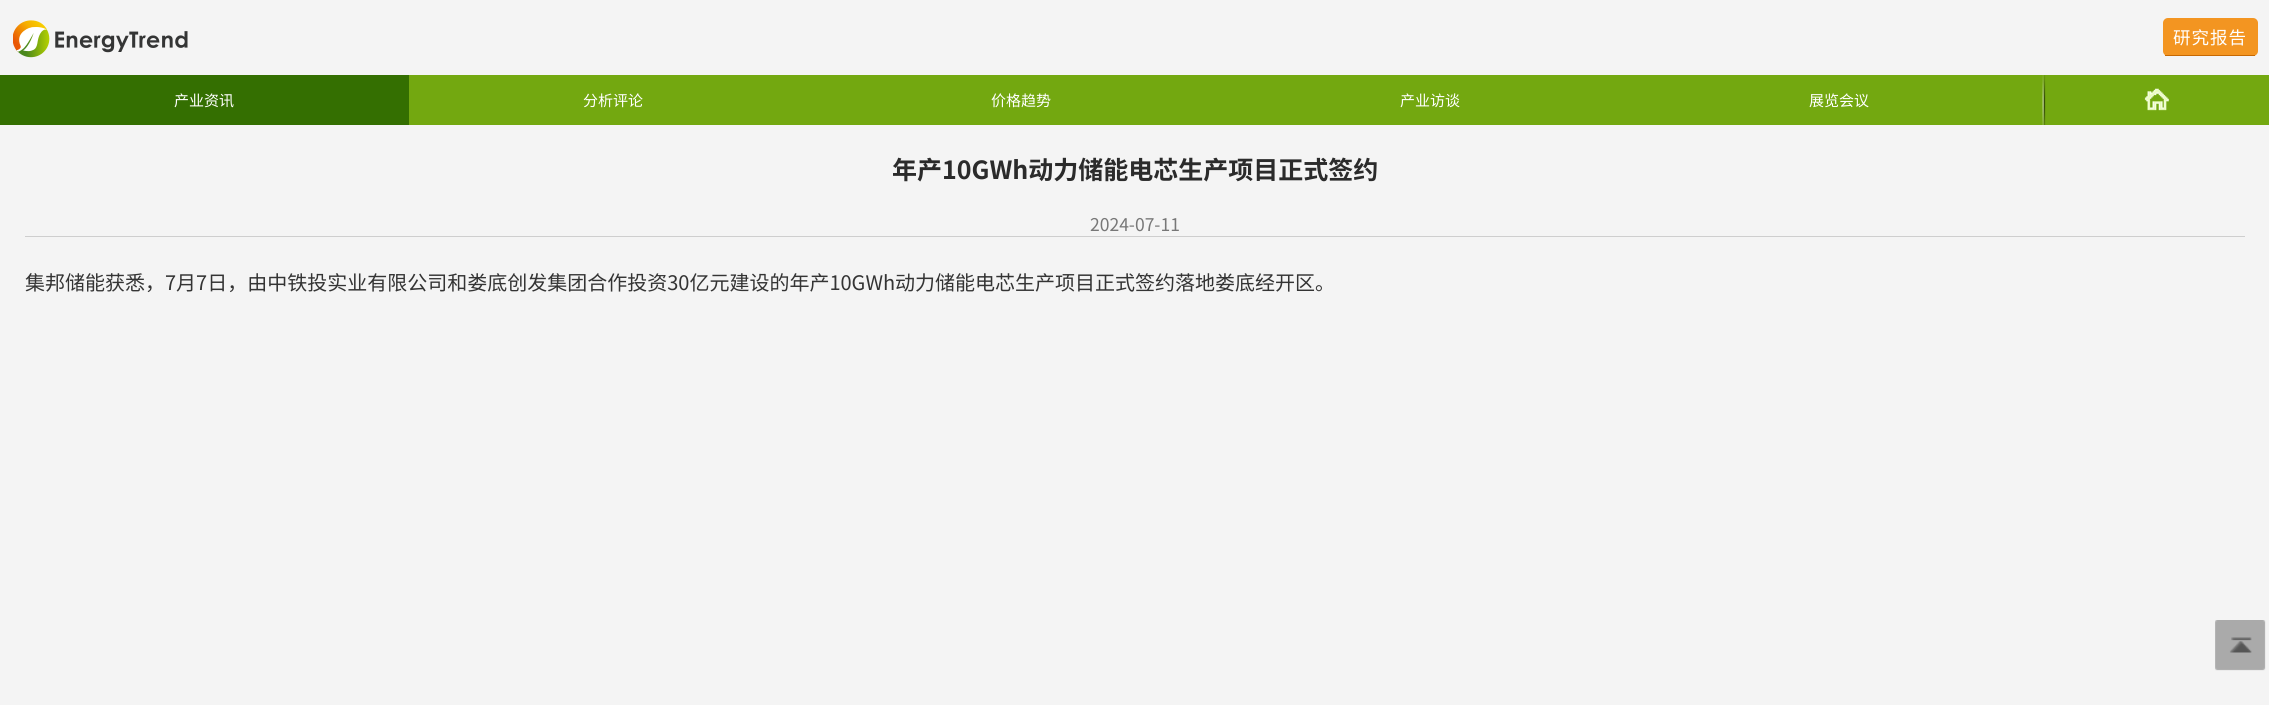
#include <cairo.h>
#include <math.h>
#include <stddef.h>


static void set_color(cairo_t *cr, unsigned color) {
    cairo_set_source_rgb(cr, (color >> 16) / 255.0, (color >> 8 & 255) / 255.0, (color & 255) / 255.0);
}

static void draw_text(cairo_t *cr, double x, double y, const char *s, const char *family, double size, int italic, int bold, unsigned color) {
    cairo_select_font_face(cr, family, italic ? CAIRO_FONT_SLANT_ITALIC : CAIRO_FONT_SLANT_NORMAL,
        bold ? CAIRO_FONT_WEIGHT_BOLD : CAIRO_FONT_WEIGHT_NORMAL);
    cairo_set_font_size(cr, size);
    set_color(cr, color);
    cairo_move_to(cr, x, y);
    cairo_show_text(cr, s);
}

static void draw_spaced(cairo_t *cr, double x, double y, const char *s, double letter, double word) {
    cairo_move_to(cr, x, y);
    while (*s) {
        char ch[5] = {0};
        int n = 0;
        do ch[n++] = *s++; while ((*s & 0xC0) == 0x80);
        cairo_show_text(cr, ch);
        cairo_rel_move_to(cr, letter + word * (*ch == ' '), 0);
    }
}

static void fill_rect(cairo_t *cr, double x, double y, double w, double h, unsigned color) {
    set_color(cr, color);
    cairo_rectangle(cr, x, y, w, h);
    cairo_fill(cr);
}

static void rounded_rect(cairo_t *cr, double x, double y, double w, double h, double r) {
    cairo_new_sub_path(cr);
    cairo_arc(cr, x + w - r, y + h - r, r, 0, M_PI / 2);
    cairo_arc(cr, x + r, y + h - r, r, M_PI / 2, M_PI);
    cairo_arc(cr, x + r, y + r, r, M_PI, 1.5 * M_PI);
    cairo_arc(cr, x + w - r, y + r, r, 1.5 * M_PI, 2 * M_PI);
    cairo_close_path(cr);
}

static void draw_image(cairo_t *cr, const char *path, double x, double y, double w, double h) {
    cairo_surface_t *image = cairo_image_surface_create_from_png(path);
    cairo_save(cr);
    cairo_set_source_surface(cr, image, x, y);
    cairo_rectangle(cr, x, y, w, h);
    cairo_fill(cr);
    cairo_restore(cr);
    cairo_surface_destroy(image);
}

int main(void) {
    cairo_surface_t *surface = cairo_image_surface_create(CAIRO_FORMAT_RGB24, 2269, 705);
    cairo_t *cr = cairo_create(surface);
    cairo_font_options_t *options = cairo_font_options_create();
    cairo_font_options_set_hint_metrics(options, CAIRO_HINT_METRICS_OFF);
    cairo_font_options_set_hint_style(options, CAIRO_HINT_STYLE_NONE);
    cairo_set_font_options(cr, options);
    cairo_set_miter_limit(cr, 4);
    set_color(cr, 0xF4F4F4);
    cairo_paint(cr);
    draw_image(cr, "assets/img1.png", 13, 20, 175, 38);
    set_color(cr, 0xF39521);
    rounded_rect(cr, 2163, 18, 95, 38, 5);
    cairo_fill(cr);
    cairo_select_font_face(cr, "Noto Sans SC", CAIRO_FONT_SLANT_NORMAL, CAIRO_FONT_WEIGHT_NORMAL);
    cairo_set_font_size(cr, 17.5);
    set_color(cr, 0xFFFFFF);
    draw_spaced(cr, 2173, 44, "研究报告", 1, 0);
    fill_rect(cr, 2165, 55, 90, 1, 0xC66802);
    fill_rect(cr, 409, 75, 1860, 50, 0x73A810);
    fill_rect(cr, 0, 75, 409, 50, 0x346F01);
    draw_text(cr, 174, 106, "产业资讯", "Noto Sans SC", 15, 0, 0, 0xFFFFFF);
    draw_text(cr, 583, 106, "分析评论", "Noto Sans SC", 15, 0, 0, 0xFFFFFF);
    draw_text(cr, 991, 106, "价格趋势", "Noto Sans SC", 15, 0, 0, 0xFFFFFF);
    draw_text(cr, 1400, 106, "产业访谈", "Noto Sans SC", 15, 0, 0, 0xFFFFFF);
    draw_text(cr, 1809, 106, "展览会议", "Noto Sans SC", 15, 0, 0, 0xFFFFFF);
    draw_image(cr, "assets/img2.png", 2042, 75, 4, 50);
    draw_image(cr, "assets/img3.png", 2144, 88, 25, 23);
    draw_text(cr, 892, 179, "年产10GWh动力储能电芯生产项目正式签约", "Noto Sans SC", 25, 0, 1, 0x2B2B2B);
    fill_rect(cr, 25, 236, 2220, 1, 0xCECECE);
    draw_text(cr, 1090, 231, "2024-07-11", "Noto Sans SC", 17.5, 0, 0, 0x777777);
    draw_text(cr, 25, 290, "集邦储能获悉，7月7日，由中铁投实业有限公司和娄底创发集团合作投资30亿元建设的年产10GWh动力储能电芯生产项目正式签约落地娄底经开区。", "Noto Sans SC", 20, 0, 0, 0x343434);
    draw_image(cr, "assets/img4.png", 2215, 620, 51, 51);
    cairo_surface_write_to_png(surface, "output.png");
    cairo_font_options_destroy(options);
    cairo_destroy(cr);
    cairo_surface_destroy(surface);
    return 0;
}
